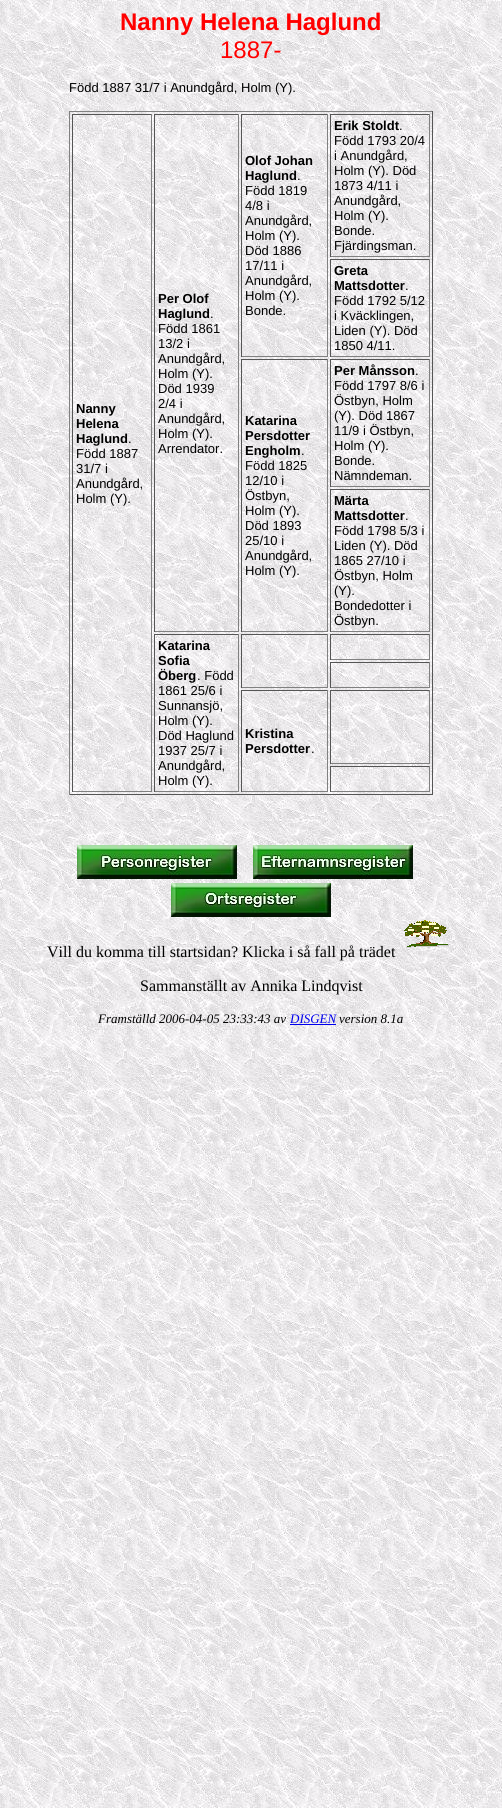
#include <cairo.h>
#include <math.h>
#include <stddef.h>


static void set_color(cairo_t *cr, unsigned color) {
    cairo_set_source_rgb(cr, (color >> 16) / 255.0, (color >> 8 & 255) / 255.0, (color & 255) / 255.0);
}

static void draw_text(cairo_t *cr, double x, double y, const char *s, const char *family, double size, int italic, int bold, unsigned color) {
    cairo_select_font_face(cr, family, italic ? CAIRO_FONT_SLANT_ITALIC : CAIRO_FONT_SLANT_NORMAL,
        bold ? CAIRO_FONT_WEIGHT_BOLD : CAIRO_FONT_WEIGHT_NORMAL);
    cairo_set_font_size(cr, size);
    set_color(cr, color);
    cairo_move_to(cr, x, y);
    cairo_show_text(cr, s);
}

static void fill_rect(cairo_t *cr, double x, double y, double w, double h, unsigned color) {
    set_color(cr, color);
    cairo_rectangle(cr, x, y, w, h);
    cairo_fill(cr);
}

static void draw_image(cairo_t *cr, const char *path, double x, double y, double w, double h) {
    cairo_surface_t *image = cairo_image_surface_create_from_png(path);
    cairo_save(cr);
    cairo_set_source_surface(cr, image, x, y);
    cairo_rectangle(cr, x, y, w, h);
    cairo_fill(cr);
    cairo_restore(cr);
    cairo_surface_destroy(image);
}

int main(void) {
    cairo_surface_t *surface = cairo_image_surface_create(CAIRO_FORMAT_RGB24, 502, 1808);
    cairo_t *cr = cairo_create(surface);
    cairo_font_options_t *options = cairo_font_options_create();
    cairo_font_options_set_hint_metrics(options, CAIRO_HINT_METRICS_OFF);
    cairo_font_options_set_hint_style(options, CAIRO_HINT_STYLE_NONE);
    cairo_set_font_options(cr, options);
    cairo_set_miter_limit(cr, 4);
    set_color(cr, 0xFFFFFF);
    cairo_paint(cr);
    draw_image(cr, "assets/img1.png", 0, 0, 502, 1808);
    draw_text(cr, 120, 30, "Nanny Helena Haglund", "Liberation Sans", 24, 0, 1, 0xFF0000);
    draw_text(cr, 220, 58, "1887-", "Liberation Sans", 24, 0, 0, 0xFF0000);
    draw_text(cr, 69, 92, "Född 1887 31/7 i Anundgård, Holm (Y).", "Liberation Sans", 13, 0, 0, 0x000000);
    fill_rect(cr, 69, 111, 364, 1, 0x808080);
    fill_rect(cr, 432, 111, 1, 684, 0x555555);
    fill_rect(cr, 69, 794, 364, 1, 0x555555);
    fill_rect(cr, 69, 111, 1, 684, 0x808080);
    fill_rect(cr, 241, 114, 87, 1, 0x555555);
    fill_rect(cr, 327, 114, 1, 243, 0x808080);
    fill_rect(cr, 241, 356, 87, 1, 0x808080);
    fill_rect(cr, 241, 114, 1, 243, 0x555555);
    draw_text(cr, 245, 165, "Olof Johan", "Liberation Sans", 13, 0, 1, 0x000000);
    draw_text(cr, 245, 180, "Haglund", "Liberation Sans", 13, 0, 1, 0x000000);
    draw_text(cr, 297, 180, ".", "Liberation Sans", 13, 0, 0, 0x000000);
    draw_text(cr, 245, 195, "Född 1819", "Liberation Sans", 13, 0, 0, 0x000000);
    draw_text(cr, 245, 210, "4/8 i", "Liberation Sans", 13, 0, 0, 0x000000);
    draw_text(cr, 245, 225, "Anundgård,", "Liberation Sans", 13, 0, 0, 0x000000);
    draw_text(cr, 245, 240, "Holm (Y).", "Liberation Sans", 13, 0, 0, 0x000000);
    draw_text(cr, 245, 255, "Död 1886", "Liberation Sans", 13, 0, 0, 0x000000);
    draw_text(cr, 245, 270, "17/11 i", "Liberation Sans", 13, 0, 0, 0x000000);
    draw_text(cr, 245, 285, "Anundgård,", "Liberation Sans", 13, 0, 0, 0x000000);
    draw_text(cr, 245, 300, "Holm (Y).", "Liberation Sans", 13, 0, 0, 0x000000);
    draw_text(cr, 245, 315, "Bonde.", "Liberation Sans", 13, 0, 0, 0x000000);
    fill_rect(cr, 330, 114, 100, 1, 0x555555);
    fill_rect(cr, 429, 114, 1, 143, 0x808080);
    fill_rect(cr, 330, 256, 100, 1, 0x808080);
    fill_rect(cr, 330, 114, 1, 143, 0x555555);
    draw_text(cr, 334, 130, "Erik Stoldt", "Liberation Sans", 13, 0, 1, 0x000000);
    draw_text(cr, 399, 130, ".", "Liberation Sans", 13, 0, 0, 0x000000);
    draw_text(cr, 334, 145, "Född 1793 20/4", "Liberation Sans", 13, 0, 0, 0x000000);
    draw_text(cr, 334, 160, "i Anundgård,", "Liberation Sans", 13, 0, 0, 0x000000);
    draw_text(cr, 334, 175, "Holm (Y). Död", "Liberation Sans", 13, 0, 0, 0x000000);
    draw_text(cr, 334, 190, "1873 4/11 i", "Liberation Sans", 13, 0, 0, 0x000000);
    draw_text(cr, 334, 205, "Anundgård,", "Liberation Sans", 13, 0, 0, 0x000000);
    draw_text(cr, 334, 220, "Holm (Y).", "Liberation Sans", 13, 0, 0, 0x000000);
    draw_text(cr, 334, 235, "Bonde.", "Liberation Sans", 13, 0, 0, 0x000000);
    draw_text(cr, 334, 250, "Fjärdingsman.", "Liberation Sans", 13, 0, 0, 0x000000);
    fill_rect(cr, 72, 114, 80, 1, 0x555555);
    fill_rect(cr, 151, 114, 1, 678, 0x808080);
    fill_rect(cr, 72, 791, 80, 1, 0x808080);
    fill_rect(cr, 72, 114, 1, 678, 0x555555);
    draw_text(cr, 76, 413, "Nanny", "Liberation Sans", 13, 0, 1, 0x000000);
    draw_text(cr, 76, 428, "Helena", "Liberation Sans", 13, 0, 1, 0x000000);
    draw_text(cr, 76, 443, "Haglund", "Liberation Sans", 13, 0, 1, 0x000000);
    draw_text(cr, 128, 443, ".", "Liberation Sans", 13, 0, 0, 0x000000);
    draw_text(cr, 76, 458, "Född 1887", "Liberation Sans", 13, 0, 0, 0x000000);
    draw_text(cr, 76, 473, "31/7 i", "Liberation Sans", 13, 0, 0, 0x000000);
    draw_text(cr, 76, 488, "Anundgård,", "Liberation Sans", 13, 0, 0, 0x000000);
    draw_text(cr, 76, 503, "Holm (Y).", "Liberation Sans", 13, 0, 0, 0x000000);
    fill_rect(cr, 154, 114, 85, 1, 0x555555);
    fill_rect(cr, 238, 114, 1, 518, 0x808080);
    fill_rect(cr, 154, 631, 85, 1, 0x808080);
    fill_rect(cr, 154, 114, 1, 518, 0x555555);
    draw_text(cr, 158, 303, "Per Olof", "Liberation Sans", 13, 0, 1, 0x000000);
    draw_text(cr, 158, 318, "Haglund", "Liberation Sans", 13, 0, 1, 0x000000);
    draw_text(cr, 210, 318, ".", "Liberation Sans", 13, 0, 0, 0x000000);
    draw_text(cr, 158, 333, "Född 1861", "Liberation Sans", 13, 0, 0, 0x000000);
    draw_text(cr, 158, 348, "13/2 i", "Liberation Sans", 13, 0, 0, 0x000000);
    draw_text(cr, 158, 363, "Anundgård,", "Liberation Sans", 13, 0, 0, 0x000000);
    draw_text(cr, 158, 378, "Holm (Y).", "Liberation Sans", 13, 0, 0, 0x000000);
    draw_text(cr, 158, 393, "Död 1939", "Liberation Sans", 13, 0, 0, 0x000000);
    draw_text(cr, 158, 408, "2/4 i", "Liberation Sans", 13, 0, 0, 0x000000);
    draw_text(cr, 158, 423, "Anundgård,", "Liberation Sans", 13, 0, 0, 0x000000);
    draw_text(cr, 158, 438, "Holm (Y).", "Liberation Sans", 13, 0, 0, 0x000000);
    draw_text(cr, 158, 453, "Arrendator.", "Liberation Sans", 13, 0, 0, 0x000000);
    fill_rect(cr, 330, 259, 100, 1, 0x555555);
    fill_rect(cr, 429, 259, 1, 98, 0x808080);
    fill_rect(cr, 330, 356, 100, 1, 0x808080);
    fill_rect(cr, 330, 259, 1, 98, 0x555555);
    draw_text(cr, 334, 275, "Greta", "Liberation Sans", 13, 0, 1, 0x000000);
    draw_text(cr, 334, 290, "Mattsdotter", "Liberation Sans", 13, 0, 1, 0x000000);
    draw_text(cr, 405, 290, ".", "Liberation Sans", 13, 0, 0, 0x000000);
    draw_text(cr, 334, 305, "Född 1792 5/12", "Liberation Sans", 13, 0, 0, 0x000000);
    draw_text(cr, 334, 320, "i Kväcklingen,", "Liberation Sans", 13, 0, 0, 0x000000);
    draw_text(cr, 334, 335, "Liden (Y). Död", "Liberation Sans", 13, 0, 0, 0x000000);
    draw_text(cr, 334, 350, "1850 4/11.", "Liberation Sans", 13, 0, 0, 0x000000);
    fill_rect(cr, 241, 359, 87, 1, 0x555555);
    fill_rect(cr, 327, 359, 1, 273, 0x808080);
    fill_rect(cr, 241, 631, 87, 1, 0x808080);
    fill_rect(cr, 241, 359, 1, 273, 0x555555);
    draw_text(cr, 245, 425, "Katarina", "Liberation Sans", 13, 0, 1, 0x000000);
    draw_text(cr, 245, 440, "Persdotter", "Liberation Sans", 13, 0, 1, 0x000000);
    draw_text(cr, 245, 455, "Engholm", "Liberation Sans", 13, 0, 1, 0x000000);
    draw_text(cr, 301, 455, ".", "Liberation Sans", 13, 0, 0, 0x000000);
    draw_text(cr, 245, 470, "Född 1825", "Liberation Sans", 13, 0, 0, 0x000000);
    draw_text(cr, 245, 485, "12/10 i", "Liberation Sans", 13, 0, 0, 0x000000);
    draw_text(cr, 245, 500, "Östbyn,", "Liberation Sans", 13, 0, 0, 0x000000);
    draw_text(cr, 245, 515, "Holm (Y).", "Liberation Sans", 13, 0, 0, 0x000000);
    draw_text(cr, 245, 530, "Död 1893", "Liberation Sans", 13, 0, 0, 0x000000);
    draw_text(cr, 245, 545, "25/10 i", "Liberation Sans", 13, 0, 0, 0x000000);
    draw_text(cr, 245, 560, "Anundgård,", "Liberation Sans", 13, 0, 0, 0x000000);
    draw_text(cr, 245, 575, "Holm (Y).", "Liberation Sans", 13, 0, 0, 0x000000);
    fill_rect(cr, 330, 359, 100, 1, 0x555555);
    fill_rect(cr, 429, 359, 1, 128, 0x808080);
    fill_rect(cr, 330, 486, 100, 1, 0x808080);
    fill_rect(cr, 330, 359, 1, 128, 0x555555);
    draw_text(cr, 334, 375, "Per Månsson", "Liberation Sans", 13, 0, 1, 0x000000);
    draw_text(cr, 415, 375, ".", "Liberation Sans", 13, 0, 0, 0x000000);
    draw_text(cr, 334, 390, "Född 1797 8/6 i", "Liberation Sans", 13, 0, 0, 0x000000);
    draw_text(cr, 334, 405, "Östbyn, Holm", "Liberation Sans", 13, 0, 0, 0x000000);
    draw_text(cr, 334, 420, "(Y). Död 1867", "Liberation Sans", 13, 0, 0, 0x000000);
    draw_text(cr, 334, 435, "11/9 i Östbyn,", "Liberation Sans", 13, 0, 0, 0x000000);
    draw_text(cr, 334, 450, "Holm (Y).", "Liberation Sans", 13, 0, 0, 0x000000);
    draw_text(cr, 334, 465, "Bonde.", "Liberation Sans", 13, 0, 0, 0x000000);
    draw_text(cr, 334, 480, "Nämndeman.", "Liberation Sans", 13, 0, 0, 0x000000);
    fill_rect(cr, 330, 489, 100, 1, 0x555555);
    fill_rect(cr, 429, 489, 1, 143, 0x808080);
    fill_rect(cr, 330, 631, 100, 1, 0x808080);
    fill_rect(cr, 330, 489, 1, 143, 0x555555);
    draw_text(cr, 334, 505, "Märta", "Liberation Sans", 13, 0, 1, 0x000000);
    draw_text(cr, 334, 520, "Mattsdotter", "Liberation Sans", 13, 0, 1, 0x000000);
    draw_text(cr, 405, 520, ".", "Liberation Sans", 13, 0, 0, 0x000000);
    draw_text(cr, 334, 535, "Född 1798 5/3 i", "Liberation Sans", 13, 0, 0, 0x000000);
    draw_text(cr, 334, 550, "Liden (Y). Död", "Liberation Sans", 13, 0, 0, 0x000000);
    draw_text(cr, 334, 565, "1865 27/10 i", "Liberation Sans", 13, 0, 0, 0x000000);
    draw_text(cr, 334, 580, "Östbyn, Holm", "Liberation Sans", 13, 0, 0, 0x000000);
    draw_text(cr, 334, 595, "(Y).", "Liberation Sans", 13, 0, 0, 0x000000);
    draw_text(cr, 334, 610, "Bondedotter i", "Liberation Sans", 13, 0, 0, 0x000000);
    draw_text(cr, 334, 625, "Östbyn.", "Liberation Sans", 13, 0, 0, 0x000000);
    fill_rect(cr, 154, 634, 85, 1, 0x555555);
    fill_rect(cr, 238, 634, 1, 158, 0x808080);
    fill_rect(cr, 154, 791, 85, 1, 0x808080);
    fill_rect(cr, 154, 634, 1, 158, 0x555555);
    draw_text(cr, 158, 650, "Katarina", "Liberation Sans", 13, 0, 1, 0x000000);
    draw_text(cr, 158, 665, "Sofia", "Liberation Sans", 13, 0, 1, 0x000000);
    draw_text(cr, 158, 680, "Öberg", "Liberation Sans", 13, 0, 1, 0x000000);
    draw_text(cr, 197, 680, ". Född", "Liberation Sans", 13, 0, 0, 0x000000);
    draw_text(cr, 158, 695, "1861 25/6 i", "Liberation Sans", 13, 0, 0, 0x000000);
    draw_text(cr, 158, 710, "Sunnansjö,", "Liberation Sans", 13, 0, 0, 0x000000);
    draw_text(cr, 158, 725, "Holm (Y).", "Liberation Sans", 13, 0, 0, 0x000000);
    draw_text(cr, 158, 740, "Död Haglund", "Liberation Sans", 13, 0, 0, 0x000000);
    draw_text(cr, 158, 755, "1937 25/7 i", "Liberation Sans", 13, 0, 0, 0x000000);
    draw_text(cr, 158, 770, "Anundgård,", "Liberation Sans", 13, 0, 0, 0x000000);
    draw_text(cr, 158, 785, "Holm (Y).", "Liberation Sans", 13, 0, 0, 0x000000);
    fill_rect(cr, 241, 634, 87, 1, 0x555555);
    fill_rect(cr, 327, 634, 1, 54, 0x808080);
    fill_rect(cr, 241, 687, 87, 1, 0x808080);
    fill_rect(cr, 241, 634, 1, 54, 0x555555);
    fill_rect(cr, 330, 634, 100, 1, 0x555555);
    fill_rect(cr, 429, 634, 1, 26, 0x808080);
    fill_rect(cr, 330, 659, 100, 1, 0x808080);
    fill_rect(cr, 330, 634, 1, 26, 0x555555);
    fill_rect(cr, 330, 662, 100, 1, 0x555555);
    fill_rect(cr, 429, 662, 1, 26, 0x808080);
    fill_rect(cr, 330, 687, 100, 1, 0x808080);
    fill_rect(cr, 330, 662, 1, 26, 0x555555);
    fill_rect(cr, 241, 690, 87, 1, 0x555555);
    fill_rect(cr, 327, 690, 1, 102, 0x808080);
    fill_rect(cr, 241, 791, 87, 1, 0x808080);
    fill_rect(cr, 241, 690, 1, 102, 0x555555);
    draw_text(cr, 245, 738, "Kristina", "Liberation Sans", 13, 0, 1, 0x000000);
    draw_text(cr, 245, 753, "Persdotter", "Liberation Sans", 13, 0, 1, 0x000000);
    draw_text(cr, 311, 753, ".", "Liberation Sans", 13, 0, 0, 0x000000);
    fill_rect(cr, 330, 690, 100, 1, 0x555555);
    fill_rect(cr, 429, 690, 1, 74, 0x808080);
    fill_rect(cr, 330, 763, 100, 1, 0x808080);
    fill_rect(cr, 330, 690, 1, 74, 0x555555);
    fill_rect(cr, 330, 766, 100, 1, 0x555555);
    fill_rect(cr, 429, 766, 1, 26, 0x808080);
    fill_rect(cr, 330, 791, 100, 1, 0x808080);
    fill_rect(cr, 330, 766, 1, 26, 0x555555);
    draw_image(cr, "assets/img2.png", 77, 845, 160, 34);
    draw_image(cr, "assets/img3.png", 253, 845, 160, 34);
    draw_image(cr, "assets/img4.png", 171, 883, 160, 34);
    draw_image(cr, "assets/img5.png", 404, 920, 46, 28);
    draw_text(cr, 47, 957, "Vill du komma till startsidan? Klicka i så fall på trädet", "Liberation Serif", 16, 0, 0, 0x000000);
    draw_text(cr, 140, 991, "Sammanställt av Annika Lindqvist", "Liberation Serif", 16, 0, 0, 0x000000);
    draw_text(cr, 98, 1023, "Framställd 2006-04-05 23:33:43 av", "Liberation Serif", 13, 1, 0, 0x000000);
    draw_text(cr, 290, 1023, "DISGEN", "Liberation Serif", 13, 1, 0, 0x0000EE);
    fill_rect(cr, 290, 1024, 46, 1, 0x0000EE);
    draw_text(cr, 339, 1023, "version 8.1a", "Liberation Serif", 13, 1, 0, 0x000000);
    cairo_surface_write_to_png(surface, "output.png");
    cairo_font_options_destroy(options);
    cairo_destroy(cr);
    cairo_surface_destroy(surface);
    return 0;
}
